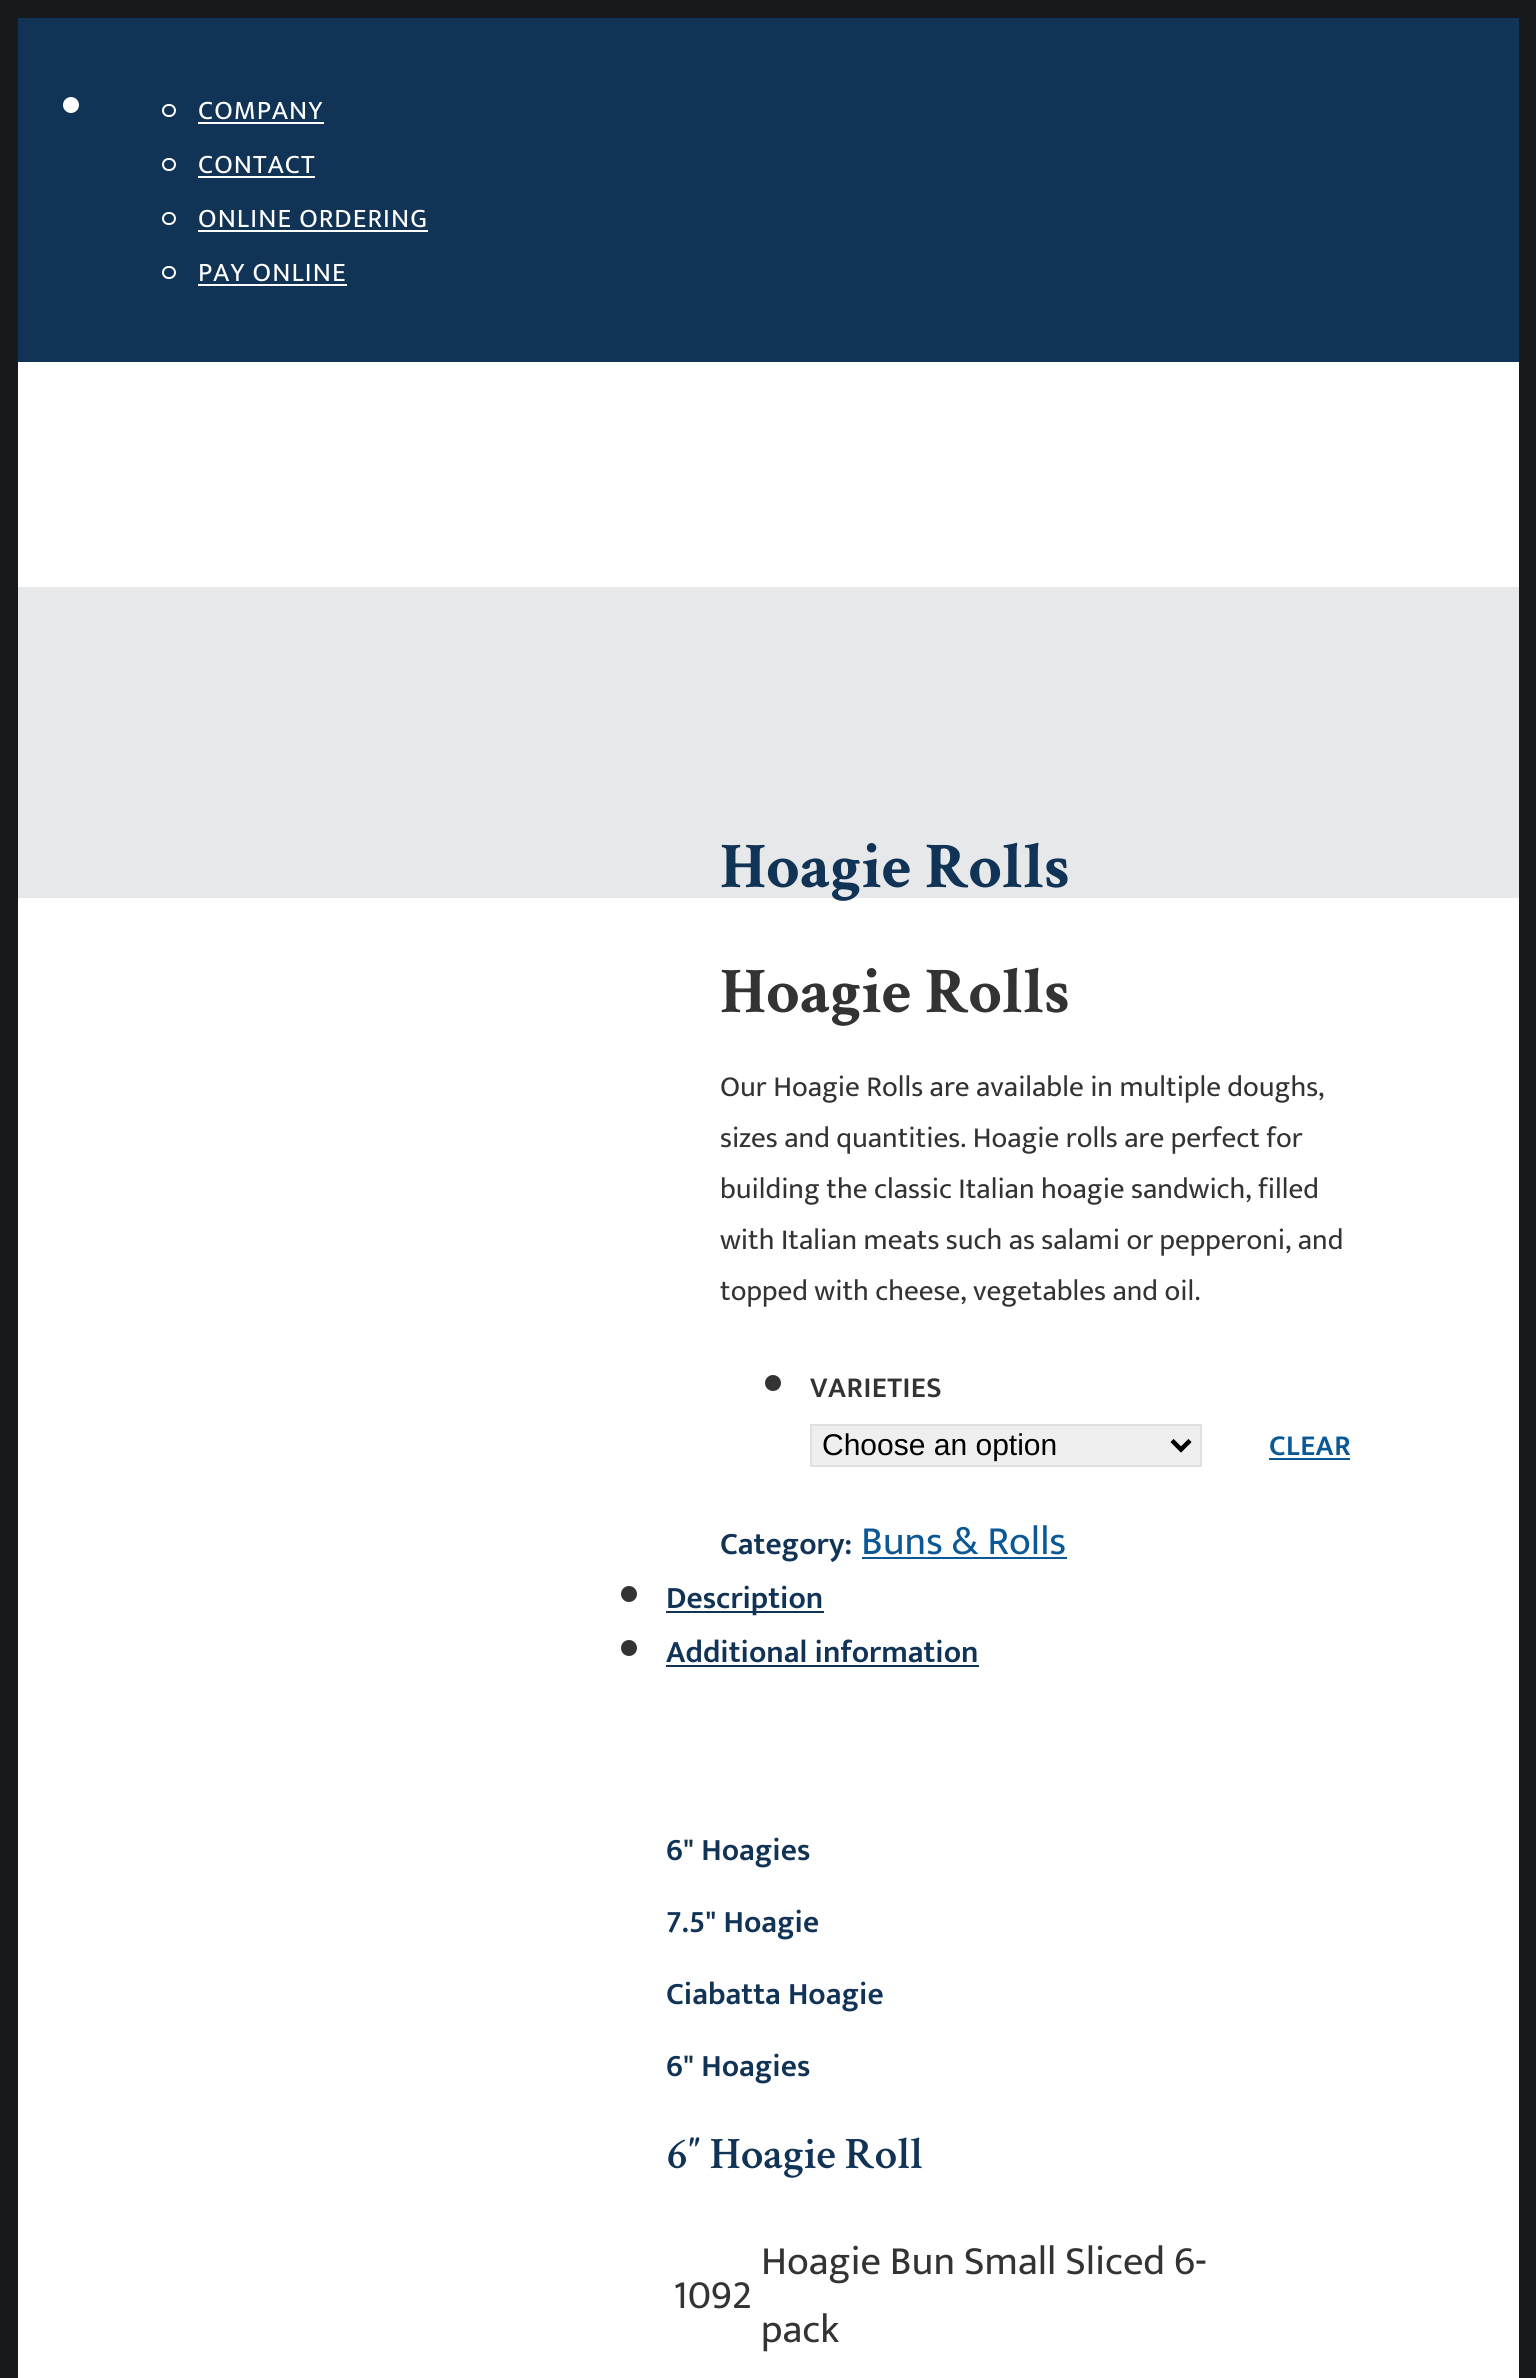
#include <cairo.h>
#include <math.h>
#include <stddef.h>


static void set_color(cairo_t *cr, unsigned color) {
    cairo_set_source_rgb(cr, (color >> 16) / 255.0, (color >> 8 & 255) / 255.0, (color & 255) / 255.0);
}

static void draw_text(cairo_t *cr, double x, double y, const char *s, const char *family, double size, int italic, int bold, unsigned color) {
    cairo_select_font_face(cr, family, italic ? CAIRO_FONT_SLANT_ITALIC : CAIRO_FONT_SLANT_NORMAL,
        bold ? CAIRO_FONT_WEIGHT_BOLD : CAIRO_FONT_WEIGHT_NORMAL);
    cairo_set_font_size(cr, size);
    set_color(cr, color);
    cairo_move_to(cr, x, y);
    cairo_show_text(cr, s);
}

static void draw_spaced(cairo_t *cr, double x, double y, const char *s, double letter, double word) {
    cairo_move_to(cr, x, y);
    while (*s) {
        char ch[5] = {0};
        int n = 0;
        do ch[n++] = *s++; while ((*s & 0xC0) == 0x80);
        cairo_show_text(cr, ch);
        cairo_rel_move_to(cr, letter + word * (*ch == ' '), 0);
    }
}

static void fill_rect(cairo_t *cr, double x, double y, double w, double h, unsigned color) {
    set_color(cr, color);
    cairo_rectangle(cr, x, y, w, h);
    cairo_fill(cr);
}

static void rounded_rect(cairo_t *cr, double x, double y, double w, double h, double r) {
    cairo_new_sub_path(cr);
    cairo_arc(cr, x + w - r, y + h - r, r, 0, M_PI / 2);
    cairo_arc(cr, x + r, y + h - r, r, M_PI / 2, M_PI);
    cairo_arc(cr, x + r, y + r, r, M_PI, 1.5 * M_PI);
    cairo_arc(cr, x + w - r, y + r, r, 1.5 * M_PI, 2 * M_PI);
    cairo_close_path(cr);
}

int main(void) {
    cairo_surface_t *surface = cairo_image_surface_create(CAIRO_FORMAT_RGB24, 1536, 2378);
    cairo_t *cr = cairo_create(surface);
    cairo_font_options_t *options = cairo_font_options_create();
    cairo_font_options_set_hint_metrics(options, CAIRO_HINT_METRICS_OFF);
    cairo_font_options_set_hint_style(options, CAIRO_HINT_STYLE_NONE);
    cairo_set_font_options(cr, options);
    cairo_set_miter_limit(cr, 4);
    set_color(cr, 0x171A1D);
    cairo_paint(cr);
    fill_rect(cr, 18, 18, 1501, 344, 0x103356);
    set_color(cr, 0xFFFFFF);
    cairo_arc(cr, 71, 105, 8, 0, 2 * M_PI);
    cairo_fill(cr);
    rounded_rect(cr, 163, 105, 12, 11, 5.5);
    cairo_stroke(cr);
    cairo_select_font_face(cr, "Mukta", CAIRO_FONT_SLANT_NORMAL, CAIRO_FONT_WEIGHT_NORMAL);
    cairo_set_font_size(cr, 27);
    draw_spaced(cr, 198, 119, "COMPANY", 1.1, 0);
    fill_rect(cr, 198, 122, 126, 2, 0xFFFFFF);
    rounded_rect(cr, 163, 159, 12, 11, 5.5);
    cairo_stroke(cr);
    draw_spaced(cr, 198, 173, "CONTACT", 1.1, 0);
    fill_rect(cr, 198, 176, 117, 2, 0xFFFFFF);
    rounded_rect(cr, 163, 213, 12, 11, 5.5);
    cairo_stroke(cr);
    draw_spaced(cr, 198, 227, "ONLINE ORDERING", 1.1, 0);
    fill_rect(cr, 198, 230, 230, 2, 0xFFFFFF);
    rounded_rect(cr, 163, 267, 12, 11, 5.5);
    cairo_stroke(cr);
    draw_spaced(cr, 198, 281, "PAY ONLINE", 1.1, 0);
    fill_rect(cr, 198, 284, 149, 2, 0xFFFFFF);
    fill_rect(cr, 18, 362, 1501, 225, 0xFFFFFF);
    fill_rect(cr, 18, 587, 1501, 311, 0xE7E8E9);
    fill_rect(cr, 18, 898, 1501, 1480, 0xFFFFFF);
    draw_text(cr, 720, 887, "Hoagie Rolls", "Crimson Text", 65.25, 0, 1, 0x103356);
    draw_text(cr, 720, 1012, "Hoagie Rolls", "Crimson Text", 65.25, 0, 1, 0x333333);
    draw_text(cr, 720, 1096, "Our Hoagie Rolls are available in multiple doughs,", "Mukta", 29.25, 0, 0, 0x333333);
    draw_text(cr, 720, 1147, "sizes and quantities. Hoagie rolls are perfect for", "Mukta", 29.25, 0, 0, 0x333333);
    draw_text(cr, 720, 1198, "building the classic Italian hoagie sandwich, filled", "Mukta", 29.25, 0, 0, 0x333333);
    draw_text(cr, 720, 1249, "with Italian meats such as salami or pepperoni, and", "Mukta", 29.25, 0, 0, 0x333333);
    draw_text(cr, 720, 1300, "topped with cheese, vegetables and oil.", "Mukta", 29.25, 0, 0, 0x333333);
    cairo_new_path(cr);
    cairo_arc(cr, 773, 1383, 8, 0, 2 * M_PI);
    cairo_fill(cr);
    cairo_select_font_face(cr, "Mukta SemiBold", CAIRO_FONT_SLANT_NORMAL, CAIRO_FONT_WEIGHT_NORMAL);
    draw_spaced(cr, 810, 1397, "VARIETIES", 0.5, 0);
    set_color(cr, 0xEFEFEF);
    cairo_rectangle(cr, 811, 1425, 390, 41);
    cairo_fill_preserve(cr);
    set_color(cr, 0xE0E0E0);
    cairo_stroke(cr);
    cairo_new_path(cr);
    cairo_move_to(cr, 1172, 1440.5);
    cairo_line_to(cr, 1181, 1449.5);
    cairo_line_to(cr, 1190, 1440.5);
    set_color(cr, 0x000000);
    cairo_set_line_width(cr, 4.5);
    cairo_stroke(cr);
    draw_text(cr, 822, 1455, "Choose an option", "Liberation Sans", 30, 0, 0, 0x000000);
    cairo_select_font_face(cr, "Mukta SemiBold", CAIRO_FONT_SLANT_NORMAL, CAIRO_FONT_WEIGHT_NORMAL);
    cairo_set_font_size(cr, 29.25);
    set_color(cr, 0x0B5896);
    draw_spaced(cr, 1269, 1455, "CLEAR", 0.5, 0);
    fill_rect(cr, 1269, 1458, 81, 2, 0x0B5896);
    draw_text(cr, 720, 1554, "Category:", "Mukta SemiBold", 31.5, 0, 0, 0x103356);
    fill_rect(cr, 862, 1557, 205, 2, 0x0B5896);
    draw_text(cr, 861, 1554, "Buns & Rolls", "Mukta", 40.5, 0, 0, 0x0B5896);
    set_color(cr, 0x333333);
    cairo_new_path(cr);
    cairo_arc(cr, 629, 1594, 8, 0, 2 * M_PI);
    cairo_fill(cr);
    fill_rect(cr, 666, 1611, 158, 2, 0x103356);
    draw_text(cr, 666, 1608, "Description", "Mukta SemiBold", 31.5, 0, 0, 0x103356);
    set_color(cr, 0x333333);
    cairo_new_path(cr);
    cairo_arc(cr, 629, 1648, 8, 0, 2 * M_PI);
    cairo_fill(cr);
    draw_text(cr, 666, 1662, "Additional information", "Mukta SemiBold", 31.5, 0, 0, 0x103356);
    fill_rect(cr, 666, 1665, 313, 2, 0x103356);
    draw_text(cr, 666, 1860, "6\" Hoagies", "Mukta SemiBold", 31.5, 0, 0, 0x103356);
    draw_text(cr, 666, 1932, "7.5\" Hoagie", "Mukta SemiBold", 31.5, 0, 0, 0x103356);
    draw_text(cr, 666, 2004, "Ciabatta Hoagie", "Mukta SemiBold", 31.5, 0, 0, 0x103356);
    draw_text(cr, 666, 2076, "6\" Hoagies", "Mukta SemiBold", 31.5, 0, 0, 0x103356);
    draw_text(cr, 666, 2168, "6″ Hoagie Roll", "Crimson Text SemiBold", 45, 0, 0, 0x103356);
    draw_text(cr, 673, 2308, "1092", "Mukta", 40.5, 0, 0, 0x333333);
    draw_text(cr, 761, 2274, "Hoagie Bun Small Sliced 6-", "Mukta", 40.5, 0, 0, 0x333333);
    draw_text(cr, 761, 2342, "pack", "Mukta", 40.5, 0, 0, 0x333333);
    cairo_surface_write_to_png(surface, "output.png");
    cairo_font_options_destroy(options);
    cairo_destroy(cr);
    cairo_surface_destroy(surface);
    return 0;
}
